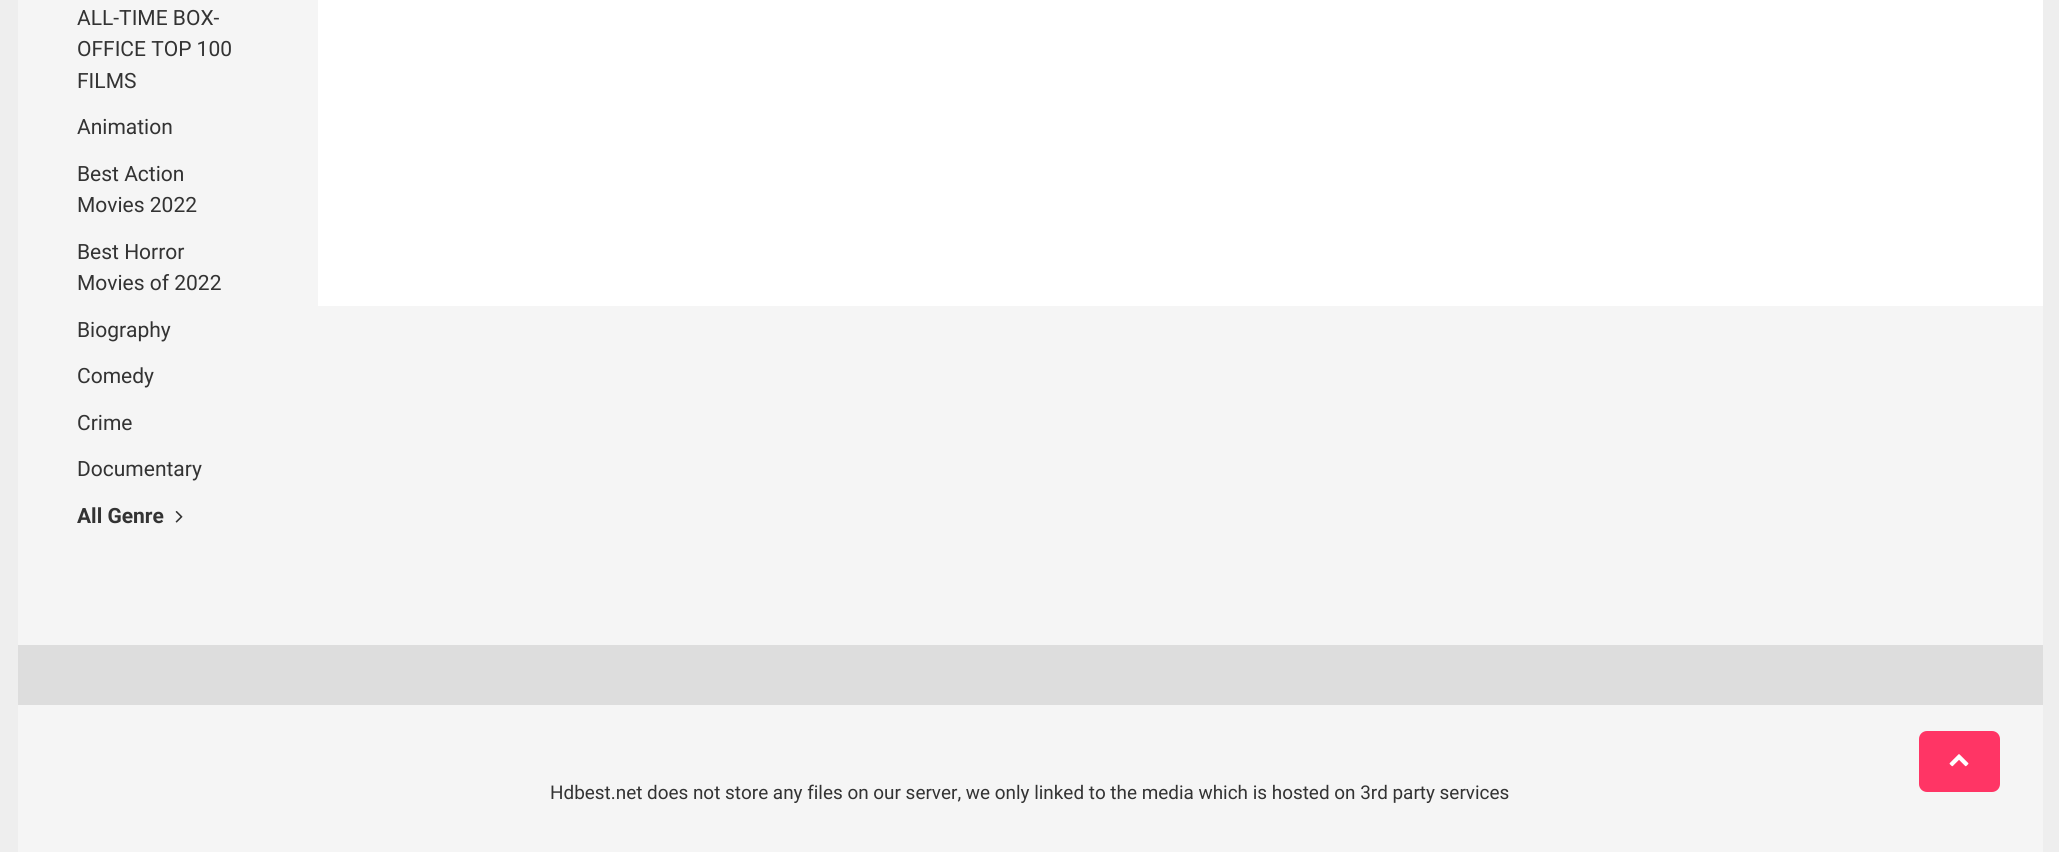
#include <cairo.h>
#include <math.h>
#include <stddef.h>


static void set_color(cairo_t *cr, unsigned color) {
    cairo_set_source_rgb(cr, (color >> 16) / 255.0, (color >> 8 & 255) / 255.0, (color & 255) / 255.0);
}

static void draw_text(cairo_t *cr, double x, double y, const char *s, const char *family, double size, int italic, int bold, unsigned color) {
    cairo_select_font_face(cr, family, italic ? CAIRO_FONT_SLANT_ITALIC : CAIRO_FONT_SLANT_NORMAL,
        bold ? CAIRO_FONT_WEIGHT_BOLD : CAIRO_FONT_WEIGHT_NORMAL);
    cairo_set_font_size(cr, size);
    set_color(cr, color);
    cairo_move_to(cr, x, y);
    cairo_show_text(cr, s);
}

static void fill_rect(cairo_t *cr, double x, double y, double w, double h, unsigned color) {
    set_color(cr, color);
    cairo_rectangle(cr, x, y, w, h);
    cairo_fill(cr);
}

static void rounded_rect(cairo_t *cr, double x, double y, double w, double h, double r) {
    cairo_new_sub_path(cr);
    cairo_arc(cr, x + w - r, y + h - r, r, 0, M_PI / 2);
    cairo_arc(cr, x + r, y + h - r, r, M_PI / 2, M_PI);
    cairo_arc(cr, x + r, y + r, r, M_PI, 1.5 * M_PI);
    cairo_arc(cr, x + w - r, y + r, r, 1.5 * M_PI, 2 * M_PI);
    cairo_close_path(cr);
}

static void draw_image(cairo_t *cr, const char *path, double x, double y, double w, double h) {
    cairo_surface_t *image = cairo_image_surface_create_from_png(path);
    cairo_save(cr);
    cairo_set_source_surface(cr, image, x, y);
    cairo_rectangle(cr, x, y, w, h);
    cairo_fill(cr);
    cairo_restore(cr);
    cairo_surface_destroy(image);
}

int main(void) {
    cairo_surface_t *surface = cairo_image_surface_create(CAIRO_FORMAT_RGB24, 2059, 852);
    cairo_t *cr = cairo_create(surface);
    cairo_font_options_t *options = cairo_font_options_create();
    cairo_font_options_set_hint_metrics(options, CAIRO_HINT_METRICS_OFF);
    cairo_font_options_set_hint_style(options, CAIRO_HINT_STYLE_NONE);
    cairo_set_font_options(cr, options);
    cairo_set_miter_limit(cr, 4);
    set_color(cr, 0xEEEEEE);
    cairo_paint(cr);
    fill_rect(cr, 18, 0, 2025, 852, 0xF5F5F5);
    draw_text(cr, 77, 25, "ALL-TIME BOX-", "Roboto", 21, 0, 0, 0x333333);
    draw_text(cr, 77, 56, "OFFICE TOP 100", "Roboto", 21, 0, 0, 0x333333);
    draw_text(cr, 77, 88, "FILMS", "Roboto", 21, 0, 0, 0x333333);
    draw_text(cr, 77, 134, "Animation", "Roboto", 21, 0, 0, 0x333333);
    draw_text(cr, 77, 181, "Best Action", "Roboto", 21, 0, 0, 0x333333);
    draw_text(cr, 77, 212, "Movies 2022", "Roboto", 21, 0, 0, 0x333333);
    draw_text(cr, 77, 259, "Best Horror", "Roboto", 21, 0, 0, 0x333333);
    draw_text(cr, 77, 290, "Movies of 2022", "Roboto", 21, 0, 0, 0x333333);
    draw_text(cr, 77, 337, "Biography", "Roboto", 21, 0, 0, 0x333333);
    draw_text(cr, 77, 383, "Comedy", "Roboto", 21, 0, 0, 0x333333);
    draw_text(cr, 77, 430, "Crime", "Roboto", 21, 0, 0, 0x333333);
    draw_text(cr, 77, 476, "Documentary", "Roboto", 21, 0, 0, 0x333333);
    draw_text(cr, 77, 523, "All Genre", "Roboto", 21, 0, 1, 0x333333);
    draw_image(cr, "assets/img1.png", 175, 511, 8, 12);
    fill_rect(cr, 318, 0, 1725, 306, 0xFFFFFF);
    fill_rect(cr, 18, 645, 2025, 60, 0xDDDDDD);
    draw_text(cr, 550, 799, "Hdbest.net does not store any files on our server, we only linked to the media which is hosted on 3rd party services", "Roboto", 18.9, 0, 0, 0x333333);
    set_color(cr, 0xFF3565);
    rounded_rect(cr, 1919, 731, 81, 61, 8);
    cairo_fill(cr);
    draw_image(cr, "assets/img2.png", 1949, 754, 20, 13);
    cairo_surface_write_to_png(surface, "output.png");
    cairo_font_options_destroy(options);
    cairo_destroy(cr);
    cairo_surface_destroy(surface);
    return 0;
}
